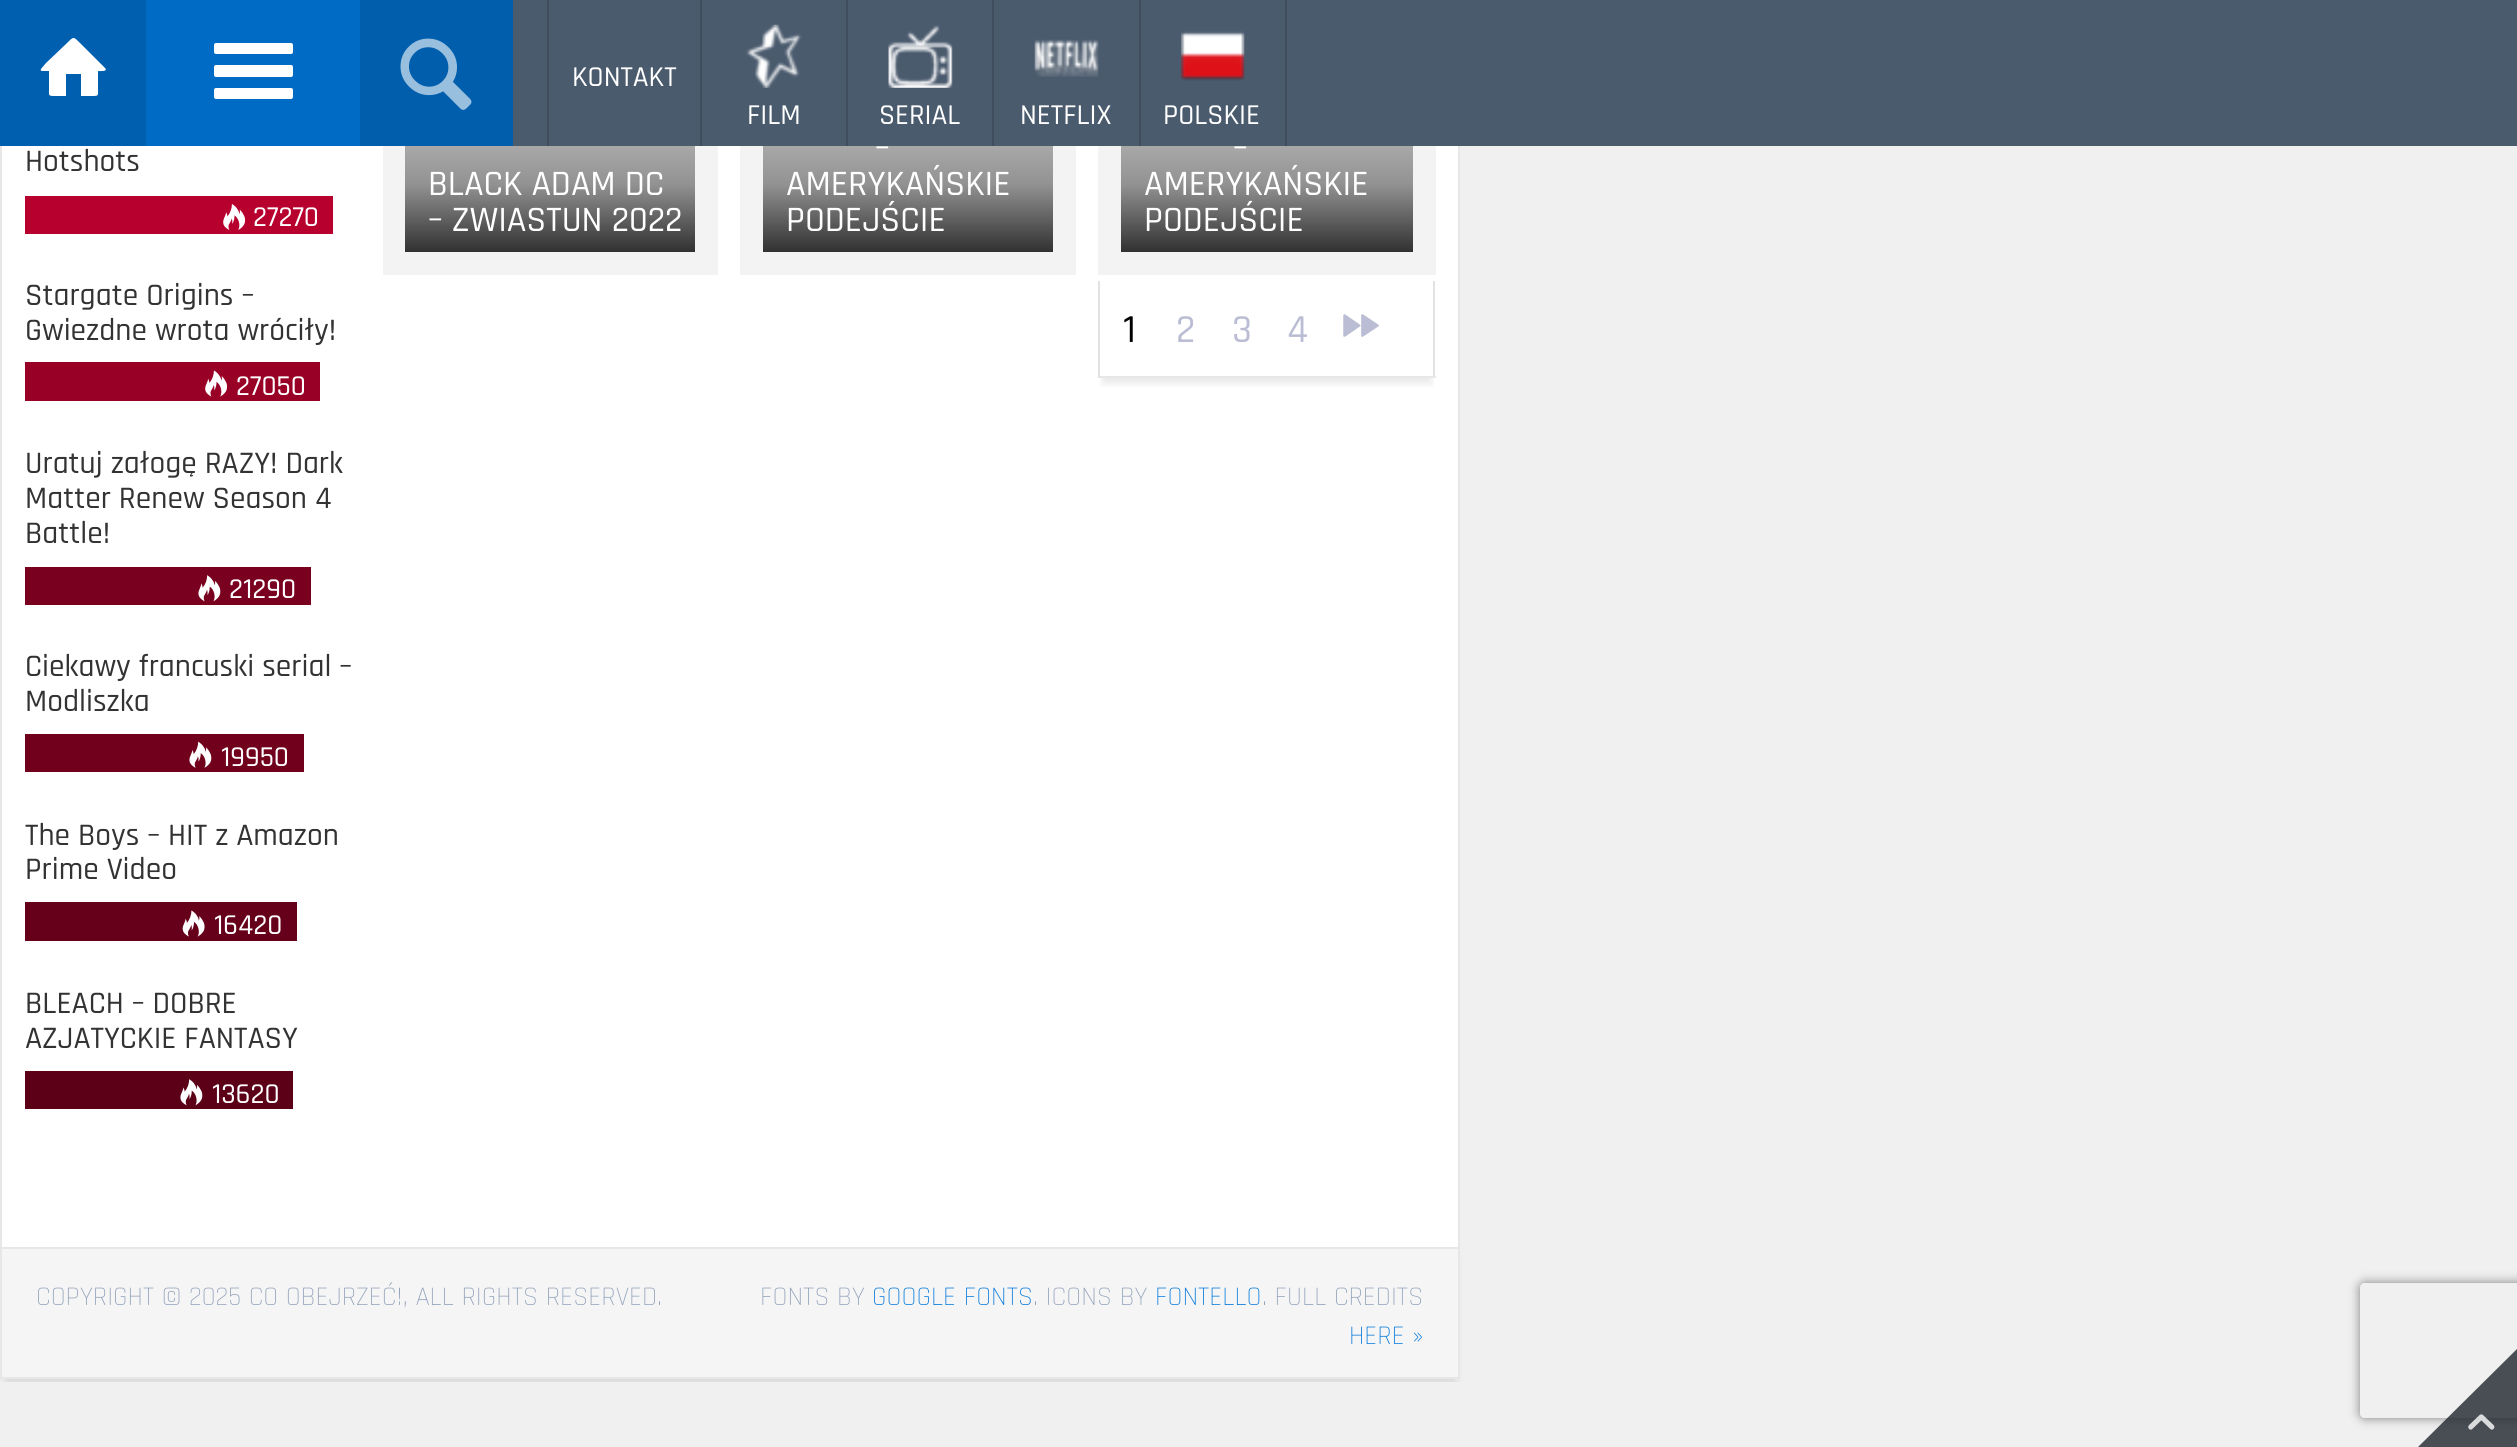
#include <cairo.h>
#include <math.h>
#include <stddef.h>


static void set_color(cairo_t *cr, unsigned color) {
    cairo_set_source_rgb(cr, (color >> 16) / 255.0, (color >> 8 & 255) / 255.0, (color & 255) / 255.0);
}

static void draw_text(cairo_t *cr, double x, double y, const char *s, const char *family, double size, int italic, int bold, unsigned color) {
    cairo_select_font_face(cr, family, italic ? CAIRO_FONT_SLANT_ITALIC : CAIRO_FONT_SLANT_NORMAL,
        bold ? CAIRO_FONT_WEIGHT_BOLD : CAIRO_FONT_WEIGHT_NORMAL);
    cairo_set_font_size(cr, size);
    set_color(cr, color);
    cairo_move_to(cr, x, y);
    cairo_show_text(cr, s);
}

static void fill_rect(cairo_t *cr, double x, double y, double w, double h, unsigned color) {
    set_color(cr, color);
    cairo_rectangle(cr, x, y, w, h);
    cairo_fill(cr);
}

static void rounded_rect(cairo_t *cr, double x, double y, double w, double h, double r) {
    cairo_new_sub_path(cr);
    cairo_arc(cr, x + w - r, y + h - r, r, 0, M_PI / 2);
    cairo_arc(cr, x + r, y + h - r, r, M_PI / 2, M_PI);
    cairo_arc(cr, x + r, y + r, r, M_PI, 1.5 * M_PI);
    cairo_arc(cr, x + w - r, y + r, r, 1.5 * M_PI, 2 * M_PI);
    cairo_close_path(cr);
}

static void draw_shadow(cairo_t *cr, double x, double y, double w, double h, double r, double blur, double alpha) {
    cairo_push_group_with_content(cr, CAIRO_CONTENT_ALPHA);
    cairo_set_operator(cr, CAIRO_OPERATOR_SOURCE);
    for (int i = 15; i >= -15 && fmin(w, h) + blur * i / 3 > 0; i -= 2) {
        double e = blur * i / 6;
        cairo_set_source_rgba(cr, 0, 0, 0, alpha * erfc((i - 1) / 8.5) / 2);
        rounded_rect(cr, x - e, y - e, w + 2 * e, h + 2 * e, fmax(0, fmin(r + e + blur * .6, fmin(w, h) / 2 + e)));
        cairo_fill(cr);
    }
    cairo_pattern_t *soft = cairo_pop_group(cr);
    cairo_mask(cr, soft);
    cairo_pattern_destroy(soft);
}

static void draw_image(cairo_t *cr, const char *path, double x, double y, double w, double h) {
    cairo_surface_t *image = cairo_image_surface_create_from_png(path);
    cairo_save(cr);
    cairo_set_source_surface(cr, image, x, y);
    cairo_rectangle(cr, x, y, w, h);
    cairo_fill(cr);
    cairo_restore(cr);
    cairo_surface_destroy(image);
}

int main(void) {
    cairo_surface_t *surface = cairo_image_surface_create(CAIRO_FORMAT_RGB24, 2517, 1447);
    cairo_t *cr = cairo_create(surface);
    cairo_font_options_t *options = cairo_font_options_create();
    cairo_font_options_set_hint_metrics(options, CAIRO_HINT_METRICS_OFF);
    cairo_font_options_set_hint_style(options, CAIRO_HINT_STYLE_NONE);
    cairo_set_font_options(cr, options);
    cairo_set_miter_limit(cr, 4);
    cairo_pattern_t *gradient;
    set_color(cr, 0xF0F0F0);
    cairo_paint(cr);
    fill_rect(cr, 2, 146, 1456, 1101, 0xFFFFFF);
    cairo_rectangle(cr, 1, -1, 1458, 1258);
    set_color(cr, 0xE7E7E7);
    cairo_stroke(cr);
    fill_rect(cr, 513, 0, 2004, 146, 0x4B5B6E);
    fill_rect(cr, 0, 0, 146, 146, 0x005FAF);
    set_color(cr, 0xFFFFFF);
    cairo_new_path(cr);
    cairo_move_to(cr, 105, 68);
    cairo_curve_to(cr, 109, 72, 98, 71, 98, 71);
    cairo_line_to(cr, 98, 89);
    cairo_curve_to(cr, 98, 95, 99, 96, 93, 96);
    cairo_line_to(cr, 81, 96);
    cairo_line_to(cr, 81, 74);
    cairo_line_to(cr, 66, 74);
    cairo_line_to(cr, 66, 96);
    cairo_line_to(cr, 54, 96);
    cairo_curve_to(cr, 48, 96, 49, 95, 49, 89);
    cairo_line_to(cr, 49, 71);
    cairo_curve_to(cr, 39, 71, 38, 72, 46, 63);
    cairo_line_to(cr, 66, 44);
    cairo_curve_to(cr, 74, 36, 73, 36, 81, 44);
    cairo_close_path(cr);
    cairo_fill(cr);
    fill_rect(cr, 146, 0, 214, 146, 0x006BC5);
    set_color(cr, 0xFFFFFF);
    rounded_rect(cr, 214, 65, 79, 12, 2);
    cairo_fill(cr);
    rounded_rect(cr, 214, 43, 79, 11, 2);
    cairo_fill(cr);
    rounded_rect(cr, 214, 88, 79, 11, 2);
    cairo_fill(cr);
    fill_rect(cr, 360, 0, 153, 146, 0x005EAD);
    draw_image(cr, "assets/img1.png", 400, 38, 72, 72);
    fill_rect(cr, 547, 0, 2, 146, 0x404D5E);
    fill_rect(cr, 700, 0, 2, 146, 0x404D5E);
    draw_text(cr, 572, 86, "KONTAKT", "Rajdhani Medium", 29, 0, 0, 0xFFFFFF);
    fill_rect(cr, 846, 0, 2, 146, 0x404D5E);
    draw_image(cr, "assets/img2.png", 746, 24, 56, 64);
    draw_text(cr, 747, 124, "FILM", "Rajdhani Medium", 29, 0, 0, 0xFFFFFF);
    fill_rect(cr, 992, 0, 2, 146, 0x404D5E);
    draw_image(cr, "assets/img3.png", 888, 25, 65, 63);
    draw_text(cr, 879, 124, "SERIAL", "Rajdhani Medium", 29, 0, 0, 0xFFFFFF);
    fill_rect(cr, 1139, 0, 2, 146, 0x404D5E);
    draw_image(cr, "assets/img4.png", 1034, 39, 65, 38);
    draw_text(cr, 1020, 124, "NETFLIX", "Rajdhani Medium", 29, 0, 0, 0xFFFFFF);
    fill_rect(cr, 1285, 0, 2, 146, 0x404D5E);
    draw_image(cr, "assets/img5.png", 1181, 31, 64, 50);
    draw_text(cr, 1163, 124, "POLSKIE", "Rajdhani Medium", 29, 0, 0, 0xFFFFFF);
    draw_text(cr, 25, 171, "Hotshots", "Rajdhani Medium", 31.5, 0, 0, 0x333333);
    fill_rect(cr, 25, 196, 308, 38, 0xB8002E);
    draw_image(cr, "assets/img6.png", 223, 204, 22, 26);
    draw_text(cr, 253, 226, "27270", "Rajdhani Medium", 29, 0, 0, 0xFFFFFF);
    draw_text(cr, 25, 305, "Stargate Origins –", "Rajdhani Medium", 31.5, 0, 0, 0x333333);
    draw_text(cr, 25, 340, "Gwiezdne wrota wróciły!", "Rajdhani Medium", 31.5, 0, 0, 0x333333);
    fill_rect(cr, 25, 362, 295, 39, 0x990026);
    draw_image(cr, "assets/img7.png", 205, 370, 22, 27);
    draw_text(cr, 236, 395, "27050", "Rajdhani Medium", 29, 0, 0, 0xFFFFFF);
    draw_text(cr, 25, 473, "Uratuj załogę RAZY! Dark", "Rajdhani Medium", 31.5, 0, 0, 0x333333);
    draw_text(cr, 25, 508, "Matter Renew Season 4", "Rajdhani Medium", 31.5, 0, 0, 0x333333);
    draw_text(cr, 25, 543, "Battle!", "Rajdhani Medium", 31.5, 0, 0, 0x333333);
    fill_rect(cr, 25, 567, 286, 38, 0x7A001F);
    draw_image(cr, "assets/img8.png", 198, 575, 23, 27);
    draw_text(cr, 229, 598, "21290", "Rajdhani Medium", 29, 0, 0, 0xFFFFFF);
    draw_text(cr, 25, 676, "Ciekawy francuski serial –", "Rajdhani Medium", 31.5, 0, 0, 0x333333);
    draw_text(cr, 25, 711, "Modliszka", "Rajdhani Medium", 31.5, 0, 0, 0x333333);
    fill_rect(cr, 25, 734, 279, 38, 0x70001C);
    draw_image(cr, "assets/img9.png", 189, 741, 23, 27);
    draw_text(cr, 221, 766, "19950", "Rajdhani Medium", 29, 0, 0, 0xFFFFFF);
    draw_text(cr, 25, 845, "The Boys – HIT z Amazon", "Rajdhani Medium", 31.5, 0, 0, 0x333333);
    draw_text(cr, 25, 879, "Prime Video", "Rajdhani Medium", 31.5, 0, 0, 0x333333);
    fill_rect(cr, 25, 902, 272, 39, 0x66001A);
    draw_image(cr, "assets/img10.png", 182, 910, 23, 27);
    draw_text(cr, 214, 934, "16420", "Rajdhani Medium", 29, 0, 0, 0xFFFFFF);
    draw_text(cr, 25, 1013, "BLEACH – DOBRE", "Rajdhani Medium", 31.5, 0, 0, 0x333333);
    draw_text(cr, 25, 1048, "AZJATYCKIE FANTASY", "Rajdhani Medium", 31.5, 0, 0, 0x333333);
    fill_rect(cr, 25, 1071, 268, 38, 0x5C0017);
    draw_image(cr, "assets/img11.png", 180, 1079, 23, 27);
    draw_text(cr, 212, 1103, "13620", "Rajdhani Medium", 29, 0, 0, 0xFFFFFF);
    fill_rect(cr, 383, 146, 335, 129, 0xF3F3F3);
    gradient = cairo_pattern_create_linear(550, 58, 550, 252);
    cairo_pattern_add_color_stop_rgba(gradient, 0, 0.859, 0.859, 0.859, 1);
    cairo_pattern_add_color_stop_rgba(gradient, 0.65, 0.573, 0.573, 0.573, 1);
    cairo_pattern_add_color_stop_rgba(gradient, 1, 0.192, 0.192, 0.192, 1);
    cairo_set_source(cr, gradient);
    cairo_pattern_destroy(gradient);
    cairo_rectangle(cr, 405, 146, 290, 106);
    cairo_fill(cr);
    draw_text(cr, 428, 195, "BLACK ADAM DC", "Rajdhani Medium", 36, 0, 0, 0xFFFFFF);
    draw_text(cr, 428, 231, "– ZWIASTUN 2022", "Rajdhani Medium", 36, 0, 0, 0xFFFFFF);
    fill_rect(cr, 740, 146, 336, 129, 0xF3F3F3);
    gradient = cairo_pattern_create_linear(908, 58, 908, 252);
    cairo_pattern_add_color_stop_rgba(gradient, 0, 0.859, 0.859, 0.859, 1);
    cairo_pattern_add_color_stop_rgba(gradient, 0.65, 0.573, 0.573, 0.573, 1);
    cairo_pattern_add_color_stop_rgba(gradient, 1, 0.192, 0.192, 0.192, 1);
    cairo_set_source(cr, gradient);
    cairo_pattern_destroy(gradient);
    cairo_rectangle(cr, 763, 146, 290, 106);
    cairo_fill(cr);
    draw_text(cr, 875, 159, "–", "Rajdhani Medium", 36, 0, 0, 0xFFFFFF);
    draw_text(cr, 786, 195, "AMERYKAŃSKIE", "Rajdhani Medium", 36, 0, 0, 0xFFFFFF);
    draw_text(cr, 786, 231, "PODEJŚCIE", "Rajdhani Medium", 36, 0, 0, 0xFFFFFF);
    fill_rect(cr, 1098, 146, 338, 129, 0xF3F3F3);
    gradient = cairo_pattern_create_linear(1267, 58, 1267, 252);
    cairo_pattern_add_color_stop_rgba(gradient, 0, 0.859, 0.859, 0.859, 1);
    cairo_pattern_add_color_stop_rgba(gradient, 0.65, 0.573, 0.573, 0.573, 1);
    cairo_pattern_add_color_stop_rgba(gradient, 1, 0.192, 0.192, 0.192, 1);
    cairo_set_source(cr, gradient);
    cairo_pattern_destroy(gradient);
    cairo_rectangle(cr, 1121, 146, 292, 106);
    cairo_fill(cr);
    draw_text(cr, 1233, 159, "–", "Rajdhani Medium", 36, 0, 0, 0xFFFFFF);
    draw_text(cr, 1144, 195, "AMERYKAŃSKIE", "Rajdhani Medium", 36, 0, 0, 0xFFFFFF);
    draw_text(cr, 1144, 231, "PODEJŚCIE", "Rajdhani Medium", 36, 0, 0, 0xFFFFFF);
    cairo_save(cr);
    cairo_rectangle(cr, 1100, 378, 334, 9);
    cairo_clip(cr);
    set_color(cr, 0x000000);
    draw_shadow(cr, 1103, 295, 328, 88, 0, 4.5, 0.1);
    cairo_restore(cr);
    fill_rect(cr, 1433, 281, 2, 97, 0xE2E2E2);
    fill_rect(cr, 1098, 376, 338, 2, 0xE7E7E7);
    fill_rect(cr, 1098, 281, 2, 97, 0xE2E2E2);
    draw_text(cr, 1123, 342, "1", "Rajdhani Medium", 40, 0, 0, 0x000000);
    draw_text(cr, 1176, 342, "2", "Rajdhani Medium", 40, 0, 0, 0xBABDD3);
    draw_text(cr, 1232, 342, "3", "Rajdhani Medium", 40, 0, 0, 0xBABDD3);
    draw_text(cr, 1287, 342, "4", "Rajdhani Medium", 40, 0, 0, 0xBABDD3);
    draw_image(cr, "assets/img12.png", 1343, 314, 36, 23);
    cairo_save(cr);
    cairo_rectangle(cr, 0, 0, 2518, 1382);
    cairo_clip(cr);
    set_color(cr, 0x000000);
    draw_shadow(cr, 5, 1260, 1451, 124, 0, 4.5, 0.1);
    cairo_restore(cr);
    set_color(cr, 0xF5F5F5);
    cairo_rectangle(cr, 1, 1248, 1458, 130);
    cairo_fill_preserve(cr);
    set_color(cr, 0xE7E7E7);
    cairo_stroke(cr);
    draw_text(cr, 36, 1305, "COPYRIGHT © 2025 CO OBEJRZEĆ!, ALL RIGHTS RESERVED.", "Rajdhani Light", 27, 0, 0, 0x90A0B9);
    draw_text(cr, 760, 1305, "FONTS BY", "Rajdhani Light", 27, 0, 0, 0x90A0B9);
    draw_text(cr, 872, 1305, "GOOGLE FONTS", "Rajdhani Light", 27, 0, 0, 0x0077DB);
    draw_text(cr, 1033, 1305, ". ICONS BY", "Rajdhani Light", 27, 0, 0, 0x90A0B9);
    draw_text(cr, 1155, 1305, "FONTELLO", "Rajdhani Light", 27, 0, 0, 0x0077DB);
    draw_text(cr, 1262, 1305, ". FULL CREDITS", "Rajdhani Light", 27, 0, 0, 0x90A0B9);
    draw_text(cr, 1349, 1344, "HERE »", "Rajdhani Light", 27, 0, 0, 0x0077DB);
    cairo_save(cr);
    cairo_set_fill_rule(cr, CAIRO_FILL_RULE_EVEN_ODD);
    cairo_new_path(cr);
    cairo_move_to(cr, 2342, 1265);
    cairo_line_to(cr, 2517, 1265);
    cairo_line_to(cr, 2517, 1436);
    cairo_line_to(cr, 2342, 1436);
    cairo_close_path(cr);
    cairo_move_to(cr, 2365, 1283);
    cairo_line_to(cr, 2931, 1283);
    cairo_curve_to(cr, 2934, 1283, 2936, 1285, 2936, 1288);
    cairo_line_to(cr, 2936, 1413);
    cairo_curve_to(cr, 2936, 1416, 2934, 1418, 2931, 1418);
    cairo_line_to(cr, 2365, 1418);
    cairo_curve_to(cr, 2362, 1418, 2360, 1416, 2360, 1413);
    cairo_line_to(cr, 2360, 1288);
    cairo_curve_to(cr, 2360, 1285, 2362, 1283, 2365, 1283);
    cairo_close_path(cr);
    cairo_clip(cr);
    set_color(cr, 0x808080);
    draw_shadow(cr, 2360, 1283, 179, 135, 5, 5.5, 1);
    cairo_restore(cr);
    cairo_set_source_rgba(cr, 0.122, 0.149, 0.18, 0.8);
    cairo_new_path(cr);
    cairo_move_to(cr, 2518, 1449);
    cairo_line_to(cr, 2416, 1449);
    cairo_line_to(cr, 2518, 1348);
    cairo_close_path(cr);
    cairo_fill(cr);
    draw_image(cr, "assets/img13.png", 2468, 1414, 27, 16);
    cairo_surface_write_to_png(surface, "output.png");
    cairo_font_options_destroy(options);
    cairo_destroy(cr);
    cairo_surface_destroy(surface);
    return 0;
}
